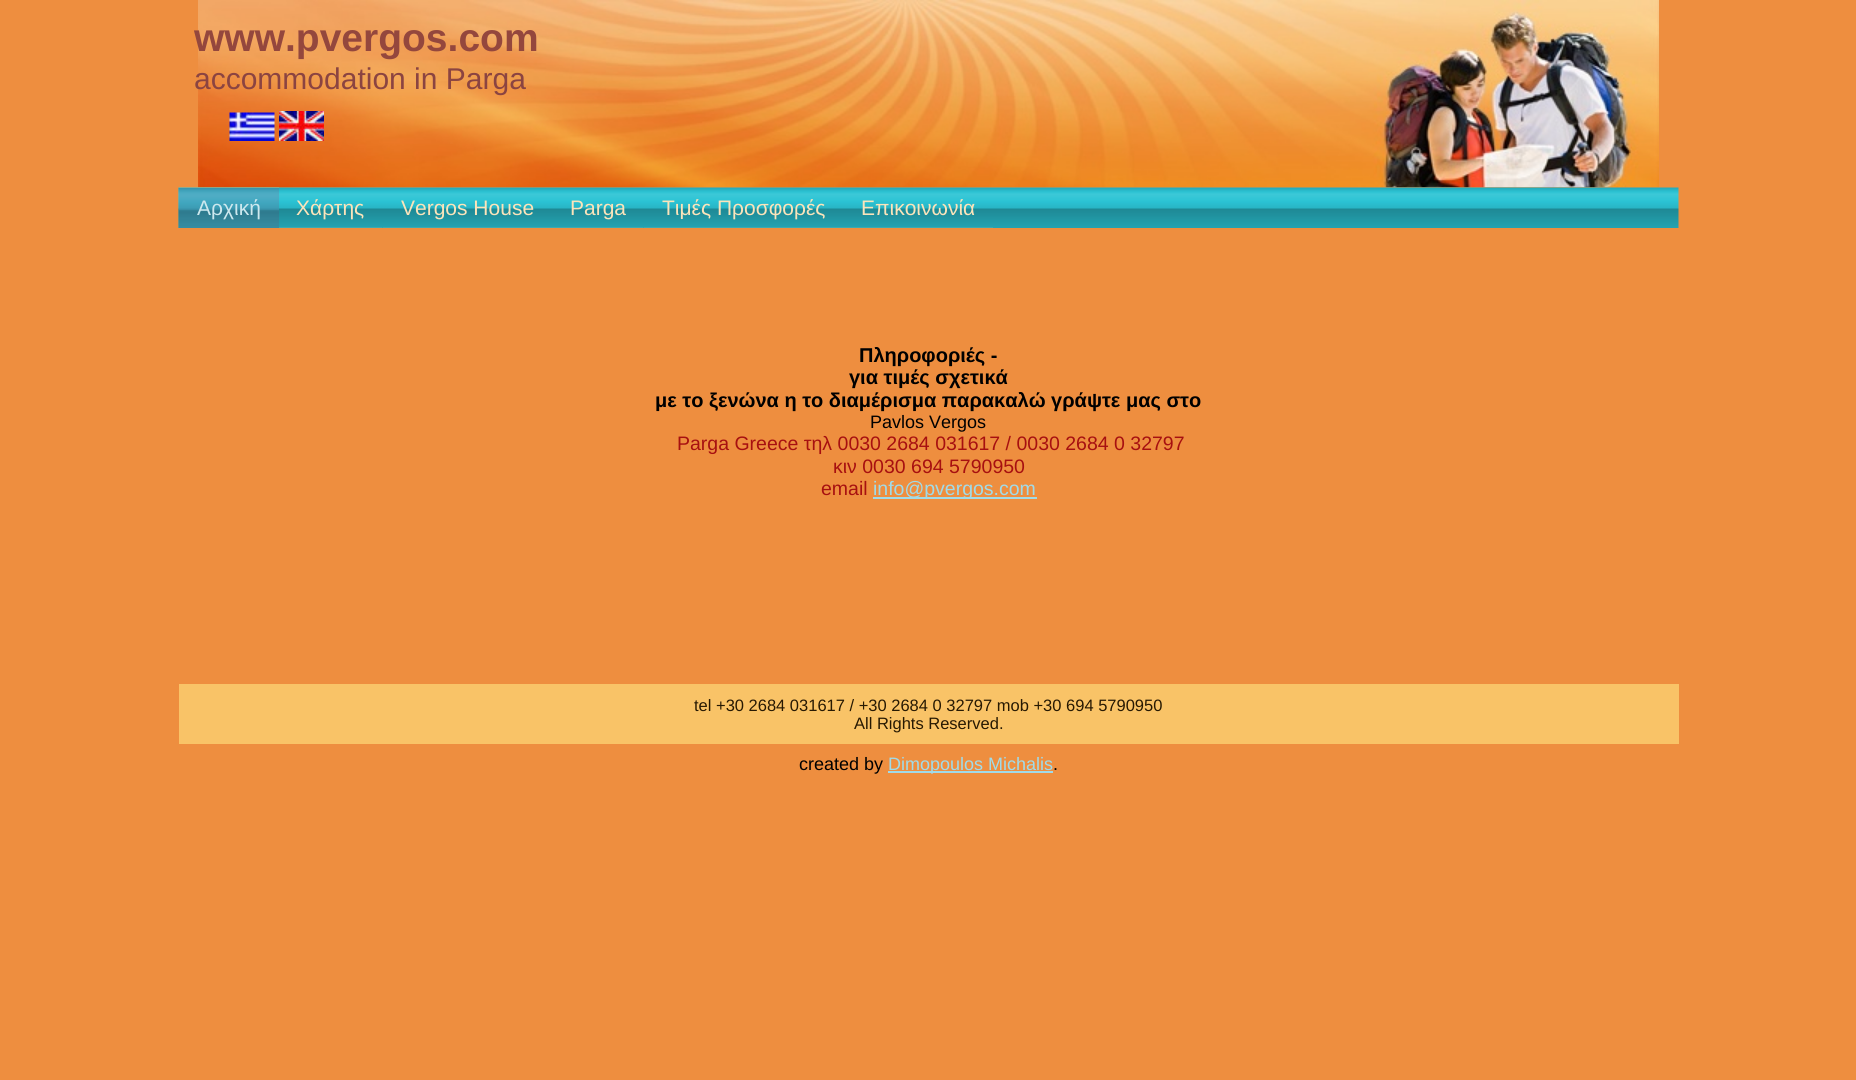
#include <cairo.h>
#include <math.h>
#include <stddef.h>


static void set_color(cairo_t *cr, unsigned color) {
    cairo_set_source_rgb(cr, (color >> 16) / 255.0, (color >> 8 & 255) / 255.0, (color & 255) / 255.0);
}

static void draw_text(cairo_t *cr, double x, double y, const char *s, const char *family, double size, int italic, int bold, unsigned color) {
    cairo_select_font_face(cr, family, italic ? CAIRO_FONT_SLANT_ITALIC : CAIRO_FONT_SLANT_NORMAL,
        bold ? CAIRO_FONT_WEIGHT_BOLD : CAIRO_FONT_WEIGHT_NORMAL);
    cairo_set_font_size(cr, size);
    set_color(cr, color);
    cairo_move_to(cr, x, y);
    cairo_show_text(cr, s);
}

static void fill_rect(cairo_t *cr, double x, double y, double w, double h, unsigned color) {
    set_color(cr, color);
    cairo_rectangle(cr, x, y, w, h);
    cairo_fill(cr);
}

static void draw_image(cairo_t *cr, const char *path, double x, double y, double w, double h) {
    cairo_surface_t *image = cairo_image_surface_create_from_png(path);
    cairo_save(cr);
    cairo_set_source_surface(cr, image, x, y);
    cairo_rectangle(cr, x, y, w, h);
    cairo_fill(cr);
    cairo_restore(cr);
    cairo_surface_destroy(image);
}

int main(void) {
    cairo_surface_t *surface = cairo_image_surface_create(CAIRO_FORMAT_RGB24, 1856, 1080);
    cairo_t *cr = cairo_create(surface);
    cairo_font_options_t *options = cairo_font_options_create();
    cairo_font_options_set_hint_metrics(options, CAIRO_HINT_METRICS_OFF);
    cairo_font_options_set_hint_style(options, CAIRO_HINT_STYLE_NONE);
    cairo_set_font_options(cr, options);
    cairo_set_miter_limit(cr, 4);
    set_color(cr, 0xEE8E3F);
    cairo_paint(cr);
    draw_image(cr, "assets/img1.png", 198, 0, 1461, 188);
    draw_text(cr, 194, 51, "www.pvergos.com", "Liberation Sans", 39, 0, 1, 0x94473D);
    draw_text(cr, 194, 89, "accommodation in Parga", "Liberation Sans", 30, 0, 0, 0x8B4441);
    draw_image(cr, "assets/img2.png", 229, 112, 46, 29);
    draw_image(cr, "assets/img3.png", 279, 111, 45, 30);
    draw_image(cr, "assets/img4.png", 178, 187, 1501, 41);
    draw_image(cr, "assets/img5.png", 178, 187, 101, 41);
    draw_text(cr, 197, 215, "Αρχική", "Liberation Sans", 21, 0, 0, 0xCDE8EE);
    draw_text(cr, 296, 215, "Χάρτης", "Liberation Sans", 21, 0, 0, 0xFCE4BA);
    draw_image(cr, "assets/img6.png", 279, 227, 104, 1);
    draw_text(cr, 401, 215, "Vergos House", "Liberation Sans", 21, 0, 0, 0xFCE4BA);
    draw_image(cr, "assets/img7.png", 382, 227, 170, 1);
    draw_text(cr, 570, 215, "Parga", "Liberation Sans", 21, 0, 0, 0xFCE4BA);
    draw_image(cr, "assets/img8.png", 552, 227, 92, 1);
    draw_text(cr, 662, 215, "Τιμές Προσφορές", "Liberation Sans", 21, 0, 0, 0xFCE4BA);
    draw_image(cr, "assets/img9.png", 643, 227, 200, 1);
    draw_text(cr, 861, 215, "Επικοινωνία", "Liberation Sans", 21, 0, 0, 0xFCE4BA);
    fill_rect(cr, 843, 227, 150, 1, 0x3DA9AE);
    draw_text(cr, 859, 362, "Πληροφοριές -", "Liberation Sans", 20, 0, 1, 0x000000);
    draw_text(cr, 849, 384, "για τιμές σχετικά", "Liberation Sans", 20, 0, 1, 0x000000);
    draw_text(cr, 655, 407, "με το ξενώνα η το διαμέρισμα παρακαλώ γράψτε μας στο", "Liberation Sans", 20, 0, 1, 0x000000);
    draw_text(cr, 870, 428, "Pavlos Vergos", "Liberation Sans", 18, 0, 0, 0x000000);
    draw_text(cr, 677, 450, "Parga Greece τηλ 0030 2684 031617 / 0030 2684 0 32797", "Liberation Sans", 19.5, 0, 0, 0xA71010);
    draw_text(cr, 833, 473, "κιν 0030 694 5790950", "Liberation Sans", 19.5, 0, 0, 0xA71010);
    draw_text(cr, 821, 495, "email", "Liberation Sans", 19.5, 0, 0, 0xA71010);
    fill_rect(cr, 873, 497, 164, 2, 0xA0DBE9);
    draw_text(cr, 873, 495, "info@pvergos.com", "Liberation Sans", 19.5, 0, 0, 0xA0DBE9);
    fill_rect(cr, 179, 684, 1500, 60, 0xF9C367);
    draw_text(cr, 694, 711, "tel +30 2684 031617 / +30 2684 0 32797 mob +30 694 5790950", "Liberation Sans", 16.5, 0, 0, 0x271902);
    draw_text(cr, 854, 729, "All Rights Reserved.", "Liberation Sans", 16.5, 0, 0, 0x271902);
    draw_text(cr, 799, 770, "created by", "Liberation Sans", 18, 0, 0, 0x000000);
    fill_rect(cr, 888, 771, 165, 2, 0xA0DBE9);
    draw_text(cr, 888, 770, "Dimopoulos Michalis", "Liberation Sans", 18, 0, 0, 0xA0DBE9);
    draw_text(cr, 1053, 770, ".", "Liberation Sans", 18, 0, 0, 0x000000);
    cairo_surface_write_to_png(surface, "output.png");
    cairo_font_options_destroy(options);
    cairo_destroy(cr);
    cairo_surface_destroy(surface);
    return 0;
}
